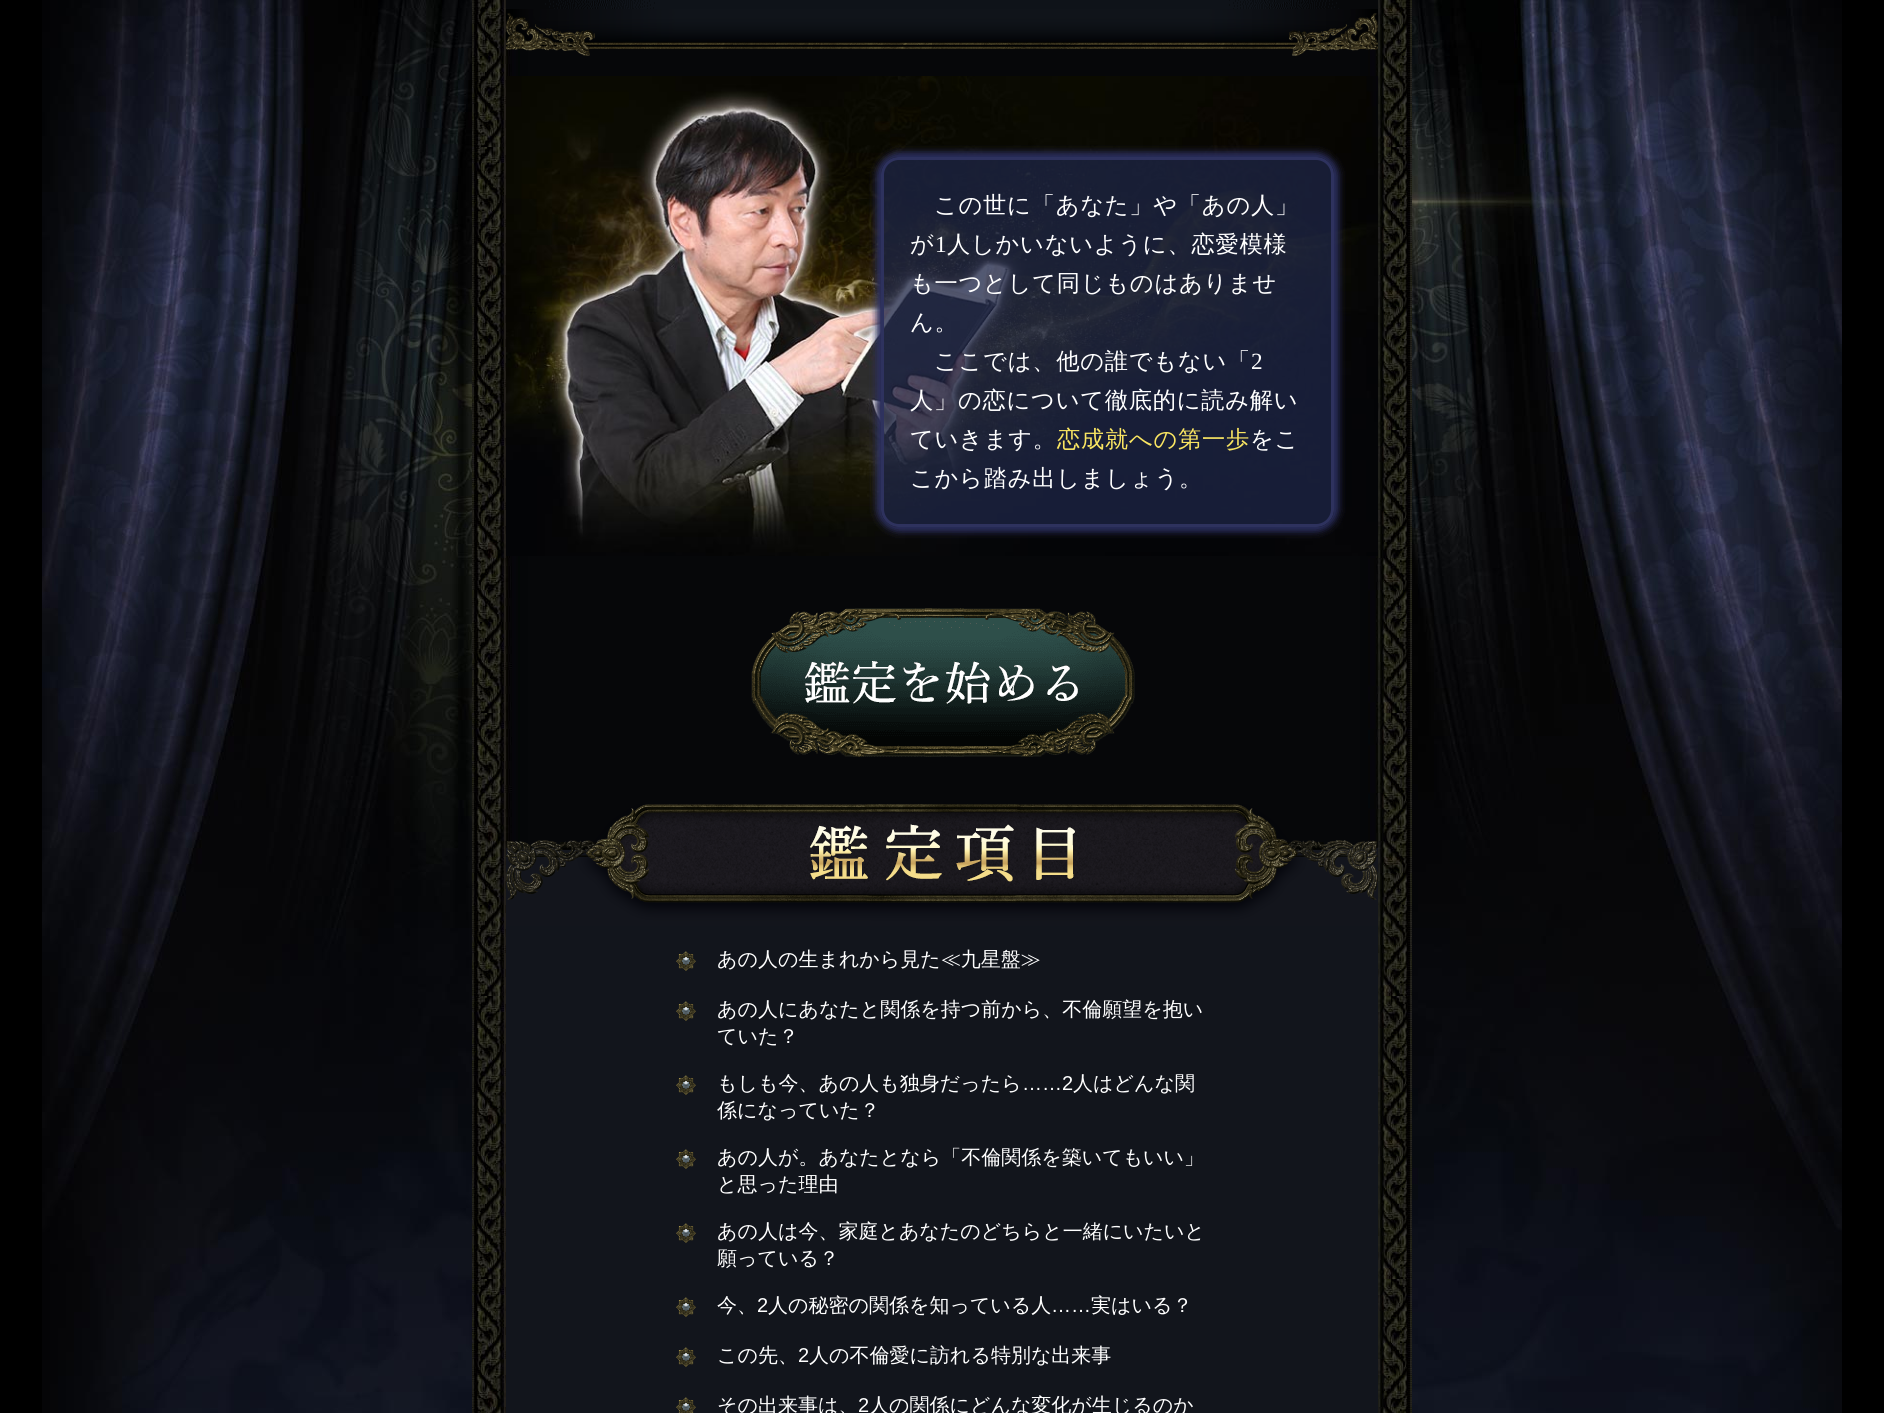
#include <cairo.h>
#include <math.h>
#include <stddef.h>


static void set_color(cairo_t *cr, unsigned color) {
    cairo_set_source_rgb(cr, (color >> 16) / 255.0, (color >> 8 & 255) / 255.0, (color & 255) / 255.0);
}

static void draw_text(cairo_t *cr, double x, double y, const char *s, const char *family, double size, int italic, int bold, unsigned color) {
    cairo_select_font_face(cr, family, italic ? CAIRO_FONT_SLANT_ITALIC : CAIRO_FONT_SLANT_NORMAL,
        bold ? CAIRO_FONT_WEIGHT_BOLD : CAIRO_FONT_WEIGHT_NORMAL);
    cairo_set_font_size(cr, size);
    set_color(cr, color);
    cairo_move_to(cr, x, y);
    cairo_show_text(cr, s);
}

static void draw_spaced(cairo_t *cr, double x, double y, const char *s, double letter, double word) {
    cairo_move_to(cr, x, y);
    while (*s) {
        char ch[5] = {0};
        int n = 0;
        do ch[n++] = *s++; while ((*s & 0xC0) == 0x80);
        cairo_show_text(cr, ch);
        cairo_rel_move_to(cr, letter + word * (*ch == ' '), 0);
    }
}

static void fill_rect(cairo_t *cr, double x, double y, double w, double h, unsigned color) {
    set_color(cr, color);
    cairo_rectangle(cr, x, y, w, h);
    cairo_fill(cr);
}

static void rounded_rect(cairo_t *cr, double x, double y, double w, double h, double r) {
    cairo_new_sub_path(cr);
    cairo_arc(cr, x + w - r, y + h - r, r, 0, M_PI / 2);
    cairo_arc(cr, x + r, y + h - r, r, M_PI / 2, M_PI);
    cairo_arc(cr, x + r, y + r, r, M_PI, 1.5 * M_PI);
    cairo_arc(cr, x + w - r, y + r, r, 1.5 * M_PI, 2 * M_PI);
    cairo_close_path(cr);
}

static void draw_shadow(cairo_t *cr, double x, double y, double w, double h, double r, double blur, double alpha) {
    cairo_push_group_with_content(cr, CAIRO_CONTENT_ALPHA);
    cairo_set_operator(cr, CAIRO_OPERATOR_SOURCE);
    for (int i = 15; i >= -15 && fmin(w, h) + blur * i / 3 > 0; i -= 2) {
        double e = blur * i / 6;
        cairo_set_source_rgba(cr, 0, 0, 0, alpha * erfc((i - 1) / 8.5) / 2);
        rounded_rect(cr, x - e, y - e, w + 2 * e, h + 2 * e, fmax(0, fmin(r + e + blur * .6, fmin(w, h) / 2 + e)));
        cairo_fill(cr);
    }
    cairo_pattern_t *soft = cairo_pop_group(cr);
    cairo_mask(cr, soft);
    cairo_pattern_destroy(soft);
}

static void draw_image(cairo_t *cr, const char *path, double x, double y, double w, double h) {
    cairo_surface_t *image = cairo_image_surface_create_from_png(path);
    cairo_save(cr);
    cairo_set_source_surface(cr, image, x, y);
    cairo_rectangle(cr, x, y, w, h);
    cairo_fill(cr);
    cairo_restore(cr);
    cairo_surface_destroy(image);
}

int main(void) {
    cairo_surface_t *surface = cairo_image_surface_create(CAIRO_FORMAT_RGB24, 1884, 1413);
    cairo_t *cr = cairo_create(surface);
    cairo_font_options_t *options = cairo_font_options_create();
    cairo_font_options_set_hint_metrics(options, CAIRO_HINT_METRICS_OFF);
    cairo_font_options_set_hint_style(options, CAIRO_HINT_STYLE_NONE);
    cairo_set_font_options(cr, options);
    cairo_set_miter_limit(cr, 4);
    set_color(cr, 0x000000);
    cairo_paint(cr);
    draw_image(cr, "assets/img1.png", 42, 0, 1800, 1413);
    draw_image(cr, "assets/img2.png", 472, 0, 940, 1413);
    draw_image(cr, "assets/img3.png", 506, 0, 872, 9);
    draw_image(cr, "assets/img4.png", 506, 9, 872, 47);
    draw_image(cr, "assets/img5.png", 506, 76, 872, 480);
    cairo_save(cr);
    cairo_set_fill_rule(cr, CAIRO_FILL_RULE_EVEN_ODD);
    cairo_new_path(cr);
    cairo_move_to(cr, 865, 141);
    cairo_line_to(cr, 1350, 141);
    cairo_line_to(cr, 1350, 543);
    cairo_line_to(cr, 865, 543);
    cairo_close_path(cr);
    cairo_move_to(cr, 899, 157);
    cairo_line_to(cr, 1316, 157);
    cairo_curve_to(cr, 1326, 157, 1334, 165, 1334, 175);
    cairo_line_to(cr, 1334, 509);
    cairo_curve_to(cr, 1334, 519, 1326, 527, 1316, 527);
    cairo_line_to(cr, 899, 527);
    cairo_curve_to(cr, 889, 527, 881, 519, 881, 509);
    cairo_line_to(cr, 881, 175);
    cairo_curve_to(cr, 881, 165, 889, 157, 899, 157);
    cairo_close_path(cr);
    cairo_clip(cr);
    set_color(cr, 0x2B2F5E);
    draw_shadow(cr, 881, 157, 453, 370, 18, 5, 1);
    draw_shadow(cr, 881, 157, 453, 370, 18, 5, 1);
    draw_shadow(cr, 881, 157, 453, 370, 18, 5, 1);
    draw_shadow(cr, 881, 157, 453, 370, 18, 5, 1);
    cairo_restore(cr);
    set_color(cr, 0x1D2546);
    draw_shadow(cr, 881, 157, 453, 370, 18, 0.5, 0.76);
    rounded_rect(cr, 882.5, 158.5, 450, 367, 16.5);
    set_color(cr, 0x2E325E);
    cairo_set_line_width(cr, 3);
    cairo_stroke(cr);
    cairo_select_font_face(cr, "WenQuanYi Zen Hei Medium", CAIRO_FONT_SLANT_NORMAL, CAIRO_FONT_WEIGHT_NORMAL);
    cairo_set_font_size(cr, 23.25);
    set_color(cr, 0xFFFFFF);
    draw_spaced(cr, 934, 213, "この世に「あなた」や「あの人」", 0.75, 0);
    draw_spaced(cr, 910, 252, "が", 0.75, 0);
    cairo_select_font_face(cr, "Liberation Serif", CAIRO_FONT_SLANT_NORMAL, CAIRO_FONT_WEIGHT_NORMAL);
    draw_spaced(cr, 935, 252, "1", 0.75, 0);
    cairo_select_font_face(cr, "WenQuanYi Zen Hei Medium", CAIRO_FONT_SLANT_NORMAL, CAIRO_FONT_WEIGHT_NORMAL);
    draw_spaced(cr, 947, 252, "人しかいないように、恋愛模様", 0.75, 0);
    draw_spaced(cr, 910, 291, "も一つとして同じものはありませ", 0.75, 0);
    draw_spaced(cr, 910, 330, "ん。", 0.75, 0);
    draw_spaced(cr, 934, 369, "ここでは、他の誰でもない「", 0.75, 0);
    cairo_select_font_face(cr, "Liberation Serif", CAIRO_FONT_SLANT_NORMAL, CAIRO_FONT_WEIGHT_NORMAL);
    draw_spaced(cr, 1251, 369, "2", 0.75, 0);
    cairo_select_font_face(cr, "WenQuanYi Zen Hei Medium", CAIRO_FONT_SLANT_NORMAL, CAIRO_FONT_WEIGHT_NORMAL);
    draw_spaced(cr, 910, 408, "人」の恋について徹底的に読み解い", 0.75, 0);
    draw_spaced(cr, 910, 447, "ていきます。", 0.75, 0);
    set_color(cr, 0xF9E562);
    draw_spaced(cr, 1057, 447, "恋成就への第一歩", 0.75, 0);
    set_color(cr, 0xFFFFFF);
    draw_spaced(cr, 1250, 447, "をこ", 0.75, 0);
    draw_spaced(cr, 910, 486, "こから踏み出しましょう。", 0.75, 0);
    draw_image(cr, "assets/img6.png", 751, 608, 384, 149);
    draw_image(cr, "assets/img7.png", 506, 804, 872, 122);
    fill_rect(cr, 506, 926, 872, 487, 0x12151C);
    draw_image(cr, "assets/img8.png", 676, 951, 20, 20);
    draw_text(cr, 717, 966, "あの人の生まれから見た≪九星盤≫", "WenQuanYi Zen Hei Medium", 20, 0, 0, 0xFFFFFF);
    draw_image(cr, "assets/img8.png", 676, 1001, 20, 20);
    draw_text(cr, 717, 1016, "あの人にあなたと関係を持つ前から、不倫願望を抱い", "WenQuanYi Zen Hei Medium", 20, 0, 0, 0xFFFFFF);
    draw_text(cr, 717, 1043, "ていた？", "WenQuanYi Zen Hei Medium", 20, 0, 0, 0xFFFFFF);
    draw_image(cr, "assets/img8.png", 676, 1075, 20, 20);
    draw_text(cr, 717, 1090, "もしも今、あの人も独身だったら", "WenQuanYi Zen Hei Medium", 20, 0, 0, 0xFFFFFF);
    draw_text(cr, 1022, 1090, "……2", "Liberation Sans", 20, 0, 0, 0xFFFFFF);
    draw_text(cr, 1073, 1090, "人はどんな関", "WenQuanYi Zen Hei Medium", 20, 0, 0, 0xFFFFFF);
    draw_text(cr, 717, 1117, "係になっていた？", "WenQuanYi Zen Hei Medium", 20, 0, 0, 0xFFFFFF);
    draw_image(cr, "assets/img8.png", 676, 1149, 20, 20);
    draw_text(cr, 717, 1164, "あの人が。あなたとなら「不倫関係を築いてもいい」", "WenQuanYi Zen Hei Medium", 20, 0, 0, 0xFFFFFF);
    draw_text(cr, 717, 1191, "と思った理由", "WenQuanYi Zen Hei Medium", 20, 0, 0, 0xFFFFFF);
    draw_image(cr, "assets/img8.png", 676, 1223, 20, 20);
    draw_text(cr, 717, 1238, "あの人は今、家庭とあなたのどちらと一緒にいたいと", "WenQuanYi Zen Hei Medium", 20, 0, 0, 0xFFFFFF);
    draw_text(cr, 717, 1265, "願っている？", "WenQuanYi Zen Hei Medium", 20, 0, 0, 0xFFFFFF);
    draw_image(cr, "assets/img8.png", 676, 1297, 20, 20);
    draw_text(cr, 717, 1312, "今、", "WenQuanYi Zen Hei Medium", 20, 0, 0, 0xFFFFFF);
    draw_text(cr, 757, 1312, "2", "Liberation Sans", 20, 0, 0, 0xFFFFFF);
    draw_text(cr, 768, 1312, "人の秘密の関係を知っている人", "WenQuanYi Zen Hei Medium", 20, 0, 0, 0xFFFFFF);
    draw_text(cr, 1051, 1312, "……", "Liberation Sans", 20, 0, 0, 0xFFFFFF);
    draw_text(cr, 1091, 1312, "実はいる？", "WenQuanYi Zen Hei Medium", 20, 0, 0, 0xFFFFFF);
    draw_image(cr, "assets/img8.png", 676, 1347, 20, 20);
    draw_text(cr, 717, 1362, "この先、", "WenQuanYi Zen Hei Medium", 20, 0, 0, 0xFFFFFF);
    draw_text(cr, 798, 1362, "2", "Liberation Sans", 20, 0, 0, 0xFFFFFF);
    draw_text(cr, 809, 1362, "人の不倫愛に訪れる特別な出来事", "WenQuanYi Zen Hei Medium", 20, 0, 0, 0xFFFFFF);
    draw_image(cr, "assets/img9.png", 676, 1397, 20, 16);
    draw_text(cr, 717, 1412, "その出来事は、", "WenQuanYi Zen Hei Medium", 20, 0, 0, 0xFFFFFF);
    draw_text(cr, 858, 1412, "2", "Liberation Sans", 20, 0, 0, 0xFFFFFF);
    draw_text(cr, 869, 1412, "人の関係にどんな変化が生じるのか", "WenQuanYi Zen Hei Medium", 20, 0, 0, 0xFFFFFF);
    cairo_surface_write_to_png(surface, "output.png");
    cairo_font_options_destroy(options);
    cairo_destroy(cr);
    cairo_surface_destroy(surface);
    return 0;
}
